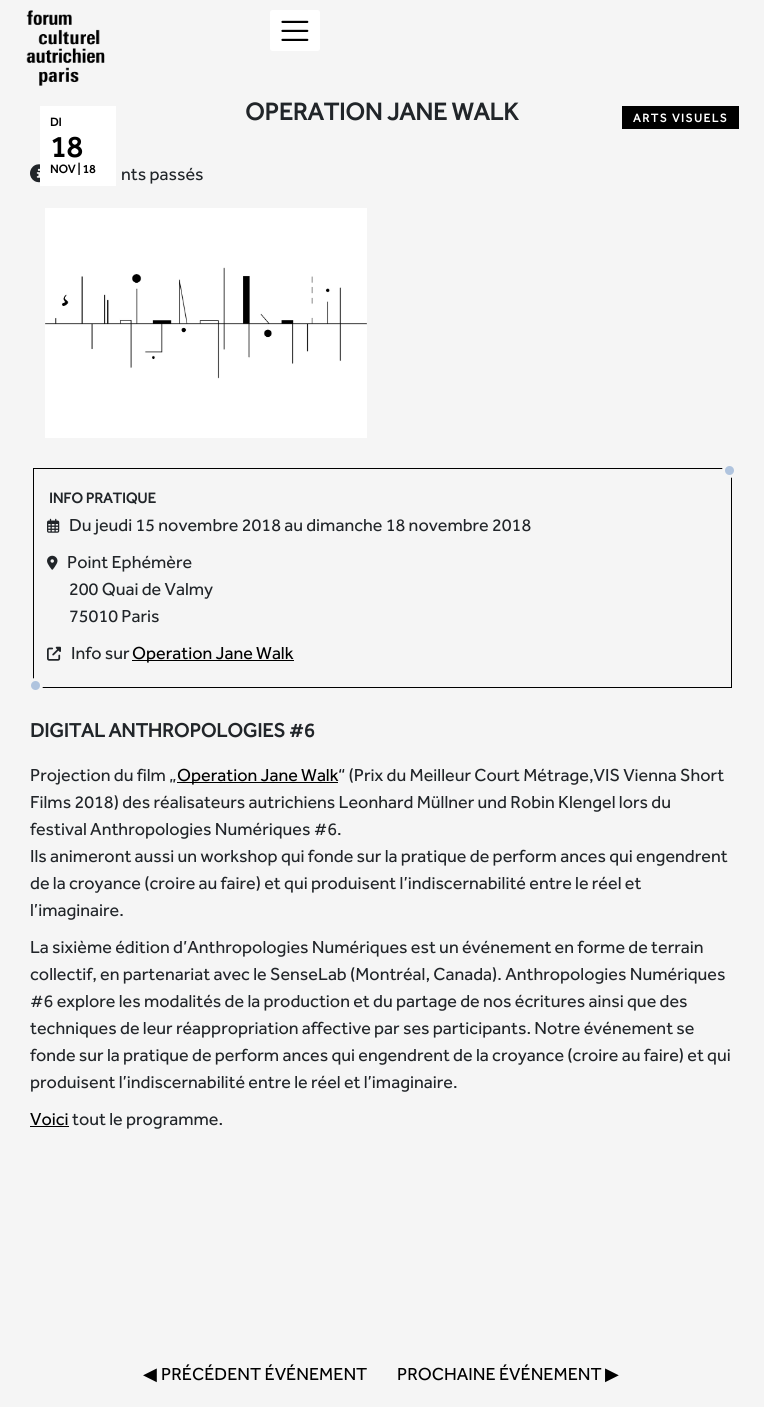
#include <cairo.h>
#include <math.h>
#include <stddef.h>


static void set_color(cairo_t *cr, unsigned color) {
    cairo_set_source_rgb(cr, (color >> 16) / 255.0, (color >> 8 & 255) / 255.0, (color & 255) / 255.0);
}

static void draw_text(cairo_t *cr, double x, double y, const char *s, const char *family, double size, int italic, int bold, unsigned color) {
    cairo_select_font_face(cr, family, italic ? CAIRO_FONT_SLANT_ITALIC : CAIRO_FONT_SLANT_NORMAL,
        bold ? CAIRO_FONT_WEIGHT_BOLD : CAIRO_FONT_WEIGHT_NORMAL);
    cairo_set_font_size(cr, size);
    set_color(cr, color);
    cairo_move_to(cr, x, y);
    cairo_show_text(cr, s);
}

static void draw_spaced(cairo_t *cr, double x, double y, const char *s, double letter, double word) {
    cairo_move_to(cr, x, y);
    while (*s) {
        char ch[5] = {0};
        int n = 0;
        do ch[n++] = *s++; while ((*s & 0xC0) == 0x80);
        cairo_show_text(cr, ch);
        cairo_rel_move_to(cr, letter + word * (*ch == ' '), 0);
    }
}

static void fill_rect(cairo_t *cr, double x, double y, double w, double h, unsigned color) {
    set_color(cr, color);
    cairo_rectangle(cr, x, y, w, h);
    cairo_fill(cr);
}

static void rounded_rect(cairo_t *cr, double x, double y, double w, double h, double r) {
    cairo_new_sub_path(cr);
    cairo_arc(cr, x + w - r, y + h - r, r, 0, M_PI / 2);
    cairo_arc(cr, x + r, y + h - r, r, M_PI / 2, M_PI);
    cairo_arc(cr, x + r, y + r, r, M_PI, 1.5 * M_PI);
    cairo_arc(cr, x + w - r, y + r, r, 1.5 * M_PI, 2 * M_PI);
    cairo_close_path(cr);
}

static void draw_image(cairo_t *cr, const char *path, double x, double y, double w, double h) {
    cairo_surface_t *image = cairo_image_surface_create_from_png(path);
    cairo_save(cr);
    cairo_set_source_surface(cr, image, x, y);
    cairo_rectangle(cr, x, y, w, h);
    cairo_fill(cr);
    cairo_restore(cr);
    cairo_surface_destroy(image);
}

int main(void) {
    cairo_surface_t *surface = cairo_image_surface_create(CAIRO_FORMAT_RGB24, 764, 1407);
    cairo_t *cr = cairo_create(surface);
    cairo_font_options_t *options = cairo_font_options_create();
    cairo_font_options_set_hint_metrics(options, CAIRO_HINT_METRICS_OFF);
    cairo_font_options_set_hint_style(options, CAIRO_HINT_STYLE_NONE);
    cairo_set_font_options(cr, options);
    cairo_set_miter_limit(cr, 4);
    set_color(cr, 0xF5F5F5);
    cairo_paint(cr);
    draw_image(cr, "assets/img1.png", 26, 10, 79, 76);
    set_color(cr, 0xFFFFFF);
    rounded_rect(cr, 270, 10, 50, 41, 2.5);
    cairo_fill(cr);
    draw_image(cr, "assets/img2.png", 281, 20, 28, 21);
    fill_rect(cr, 40, 106, 76, 80, 0xFFFFFF);
    draw_text(cr, 50, 126, "DI", "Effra", 12, 0, 1, 0x000000);
    draw_text(cr, 50, 157, "18", "Effra", 30, 0, 1, 0x000000);
    draw_text(cr, 50, 173, "NOV | 18", "Effra", 12, 0, 1, 0x000000);
    draw_text(cr, 245, 120, "OPERATION JANE WALK", "Effra", 25, 0, 1, 0x212529);
    fill_rect(cr, 622, 106, 117, 23, 0x000000);
    cairo_set_font_size(cr, 12);
    set_color(cr, 0xFFFFFF);
    draw_spaced(cr, 633, 122, "ARTS VISUELS", 1.5, 0);
    draw_image(cr, "assets/img3.png", 30, 164, 10, 19);
    draw_text(cr, 121, 180, "nts passés", "Effra", 18, 0, 0, 0x212529);
    draw_image(cr, "assets/img4.png", 45, 208, 322, 230);
    cairo_rectangle(cr, 33.5, 468.5, 698, 219);
    set_color(cr, 0x000000);
    cairo_set_line_width(cr, 1);
    cairo_stroke(cr);
    set_color(cr, 0xB0C4DE);
    cairo_arc(cr, 729.5, 470.5, 6, 0, 2 * M_PI);
    cairo_fill_preserve(cr);
    set_color(cr, 0xF5F5F5);
    cairo_set_line_width(cr, 3);
    cairo_stroke(cr);
    draw_text(cr, 49, 503, "INFO PRATIQUE", "Effra", 15, 0, 1, 0x212529);
    draw_image(cr, "assets/img5.png", 47, 518, 13, 15);
    draw_text(cr, 69, 531, "Du jeudi 15 novembre 2018 au dimanche 18 novembre 2018", "Effra", 18, 0, 0, 0x212529);
    draw_image(cr, "assets/img6.png", 47, 555, 11, 15);
    draw_text(cr, 67, 568, "Point Ephémère", "Effra", 18, 0, 0, 0x212529);
    draw_text(cr, 69, 595, "200 Quai de Valmy", "Effra", 18, 0, 0, 0x212529);
    draw_text(cr, 69, 622, "75010 Paris", "Effra", 18, 0, 0, 0x212529);
    draw_image(cr, "assets/img7.png", 47, 646, 14, 15);
    draw_text(cr, 71, 659, "Info sur", "Effra", 18, 0, 0, 0x212529);
    fill_rect(cr, 132, 660, 162, 1, 0x000000);
    draw_text(cr, 132, 659, "Operation Jane Walk", "Effra", 18, 0, 0, 0x000000);
    set_color(cr, 0xB0C4DE);
    cairo_new_path(cr);
    cairo_arc(cr, 35.5, 685.5, 6, 0, 2 * M_PI);
    cairo_fill_preserve(cr);
    set_color(cr, 0xF5F5F5);
    cairo_stroke(cr);
    draw_text(cr, 30, 737, "DIGITAL ANTHROPOLOGIES #6", "Effra", 20, 0, 1, 0x212529);
    draw_text(cr, 30, 781, "Projection du film „", "Effra", 18, 0, 0, 0x212529);
    fill_rect(cr, 177, 782, 161, 1, 0x000000);
    draw_text(cr, 177, 781, "Operation Jane Walk", "Effra", 18, 0, 0, 0x000000);
    draw_text(cr, 338, 781, "“ (Prix du Meilleur Court Métrage,VIS Vienna Short", "Effra", 18, 0, 0, 0x212529);
    draw_text(cr, 30, 808, "Films 2018) des réalisateurs autrichiens Leonhard Müllner und Robin Klengel lors du", "Effra", 18, 0, 0, 0x212529);
    draw_text(cr, 30, 835, "festival Anthropologies Numériques #6.", "Effra", 18, 0, 0, 0x212529);
    draw_text(cr, 30, 862, "Ils animeront aussi un workshop qui fonde sur la pratique de perform ances qui engendrent", "Effra", 18, 0, 0, 0x212529);
    draw_text(cr, 30, 889, "de la croyance (croire au faire) et qui produisent l’indiscernabilité entre le réel et", "Effra", 18, 0, 0, 0x212529);
    draw_text(cr, 30, 916, "l’imaginaire.", "Effra", 18, 0, 0, 0x212529);
    draw_text(cr, 30, 953, "La sixième édition d’Anthropologies Numériques est un événement en forme de terrain", "Effra", 18, 0, 0, 0x212529);
    draw_text(cr, 30, 980, "collectif, en partenariat avec le SenseLab (Montréal, Canada). Anthropologies Numériques", "Effra", 18, 0, 0, 0x212529);
    draw_text(cr, 30, 1007, "#6 explore les modalités de la production et du partage de nos écritures ainsi que des", "Effra", 18, 0, 0, 0x212529);
    draw_text(cr, 30, 1034, "techniques de leur réappropriation affective par ses participants. Notre événement se", "Effra", 18, 0, 0, 0x212529);
    draw_text(cr, 30, 1061, "fonde sur la pratique de perform ances qui engendrent de la croyance (croire au faire) et qui", "Effra", 18, 0, 0, 0x212529);
    draw_text(cr, 30, 1088, "produisent l’indiscernabilité entre le réel et l’imaginaire.", "Effra", 18, 0, 0, 0x212529);
    draw_text(cr, 30, 1125, "Voici", "Effra", 18, 0, 0, 0x000000);
    fill_rect(cr, 30, 1126, 39, 1, 0x000000);
    draw_text(cr, 72, 1125, "tout le programme.", "Effra", 18, 0, 0, 0x212529);
    draw_text(cr, 143, 1380, "◀", "DejaVu Sans", 18, 0, 0, 0x000000);
    draw_text(cr, 161, 1380, "PRÉCÉDENT ÉVÉNEMENT", "Effra", 18, 0, 0, 0x000000);
    draw_text(cr, 397, 1380, "PROCHAINE ÉVÉNEMENT", "Effra", 18, 0, 0, 0x000000);
    draw_text(cr, 605, 1380, "▶", "DejaVu Sans", 18, 0, 0, 0x000000);
    cairo_surface_write_to_png(surface, "output.png");
    cairo_font_options_destroy(options);
    cairo_destroy(cr);
    cairo_surface_destroy(surface);
    return 0;
}
